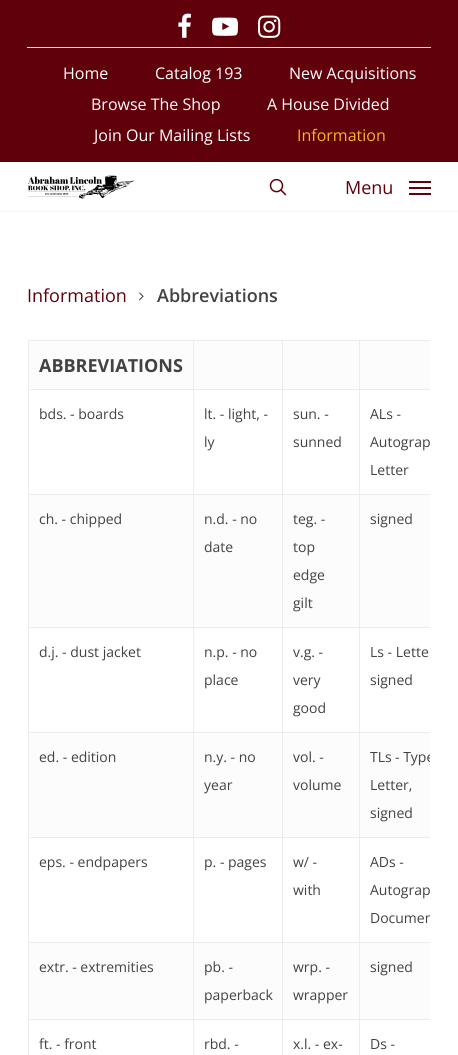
#include <cairo.h>
#include <math.h>
#include <stddef.h>


static void set_color(cairo_t *cr, unsigned color) {
    cairo_set_source_rgb(cr, (color >> 16) / 255.0, (color >> 8 & 255) / 255.0, (color & 255) / 255.0);
}

static void draw_text(cairo_t *cr, double x, double y, const char *s, const char *family, double size, int italic, int bold, unsigned color) {
    cairo_select_font_face(cr, family, italic ? CAIRO_FONT_SLANT_ITALIC : CAIRO_FONT_SLANT_NORMAL,
        bold ? CAIRO_FONT_WEIGHT_BOLD : CAIRO_FONT_WEIGHT_NORMAL);
    cairo_set_font_size(cr, size);
    set_color(cr, color);
    cairo_move_to(cr, x, y);
    cairo_show_text(cr, s);
}

static void fill_rect(cairo_t *cr, double x, double y, double w, double h, unsigned color) {
    set_color(cr, color);
    cairo_rectangle(cr, x, y, w, h);
    cairo_fill(cr);
}

static void rounded_rect(cairo_t *cr, double x, double y, double w, double h, double r) {
    cairo_new_sub_path(cr);
    cairo_arc(cr, x + w - r, y + h - r, r, 0, M_PI / 2);
    cairo_arc(cr, x + r, y + h - r, r, M_PI / 2, M_PI);
    cairo_arc(cr, x + r, y + r, r, M_PI, 1.5 * M_PI);
    cairo_arc(cr, x + w - r, y + r, r, 1.5 * M_PI, 2 * M_PI);
    cairo_close_path(cr);
}

static void draw_shadow(cairo_t *cr, double x, double y, double w, double h, double r, double blur, double alpha) {
    cairo_push_group_with_content(cr, CAIRO_CONTENT_ALPHA);
    cairo_set_operator(cr, CAIRO_OPERATOR_SOURCE);
    for (int i = 15; i >= -15 && fmin(w, h) + blur * i / 3 > 0; i -= 2) {
        double e = blur * i / 6;
        cairo_set_source_rgba(cr, 0, 0, 0, alpha * erfc((i - 1) / 8.5) / 2);
        rounded_rect(cr, x - e, y - e, w + 2 * e, h + 2 * e, fmax(0, fmin(r + e + blur * .6, fmin(w, h) / 2 + e)));
        cairo_fill(cr);
    }
    cairo_pattern_t *soft = cairo_pop_group(cr);
    cairo_mask(cr, soft);
    cairo_pattern_destroy(soft);
}

static void draw_image(cairo_t *cr, const char *path, double x, double y, double w, double h) {
    cairo_surface_t *image = cairo_image_surface_create_from_png(path);
    cairo_save(cr);
    cairo_set_source_surface(cr, image, x, y);
    cairo_rectangle(cr, x, y, w, h);
    cairo_fill(cr);
    cairo_restore(cr);
    cairo_surface_destroy(image);
}

int main(void) {
    cairo_surface_t *surface = cairo_image_surface_create(CAIRO_FORMAT_RGB24, 458, 1055);
    cairo_t *cr = cairo_create(surface);
    cairo_font_options_t *options = cairo_font_options_create();
    cairo_font_options_set_hint_metrics(options, CAIRO_HINT_METRICS_OFF);
    cairo_font_options_set_hint_style(options, CAIRO_HINT_STYLE_NONE);
    cairo_set_font_options(cr, options);
    cairo_set_miter_limit(cr, 4);
    set_color(cr, 0xFFFFFF);
    cairo_paint(cr);
    cairo_save(cr);
    cairo_rectangle(cr, 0, 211, 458, 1);
    cairo_clip(cr);
    set_color(cr, 0x000000);
    draw_shadow(cr, 0, 0, 458, 211, 0, 1, 0.14);
    cairo_restore(cr);
    fill_rect(cr, 0, 0, 458, 161, 0x60000B);
    fill_rect(cr, 0, 161, 458, 1, 0x56000A);
    draw_image(cr, "assets/img1.png", 178, 13, 13, 25);
    draw_image(cr, "assets/img2.png", 212, 17, 26, 19);
    fill_rect(cr, 290, 10, 1, 20, 0x56000A);
    draw_image(cr, "assets/img3.png", 258, 15, 23, 23);
    fill_rect(cr, 27, 47, 404, 1, 0xDDDDDD);
    draw_text(cr, 63, 79, "Home", "Open Sans", 16, 0, 0, 0xFFFFFF);
    draw_text(cr, 155, 79, "Catalog 193", "Open Sans", 16, 0, 0, 0xFFFFFF);
    draw_text(cr, 289, 79, "New Acquisitions", "Open Sans", 16, 0, 0, 0xFFFFFF);
    draw_text(cr, 91, 110, "Browse The Shop", "Open Sans", 16, 0, 0, 0xFFFFFF);
    draw_text(cr, 267, 110, "A House Divided", "Open Sans", 16, 0, 0, 0xFFFFFF);
    draw_text(cr, 94, 141, "Join Our Mailing Lists", "Open Sans", 16, 0, 0, 0xFFFFFF);
    draw_text(cr, 297, 141, "Information", "Open Sans", 16, 0, 0, 0xF7B32B);
    draw_image(cr, "assets/img4.png", 28, 175, 106, 24);
    draw_image(cr, "assets/img5.png", 269, 178, 18, 18);
    draw_text(cr, 345, 194, "Menu", "Open Sans", 18, 0, 0, 0x60000B);
    fill_rect(cr, 409, 181, 22, 2, 0x60000B);
    fill_rect(cr, 409, 193, 22, 2, 0x60000B);
    fill_rect(cr, 409, 187, 22, 2, 0x60000B);
    draw_text(cr, 27, 302, "Information", "Open Sans", 18, 0, 0, 0x60000B);
    draw_image(cr, "assets/img6.png", 139, 292, 5, 9);
    draw_text(cr, 157, 302, "Abbreviations", "Open Sans SemiBold", 18, 0, 0, 0x424242);
    fill_rect(cr, 28, 340, 402, 1, 0xECECEC);
    fill_rect(cr, 29, 341, 401, 48, 0xFCFCFC);
    fill_rect(cr, 29, 495, 401, 132, 0xFCFCFC);
    fill_rect(cr, 29, 733, 401, 104, 0xFCFCFC);
    fill_rect(cr, 29, 943, 401, 76, 0xFCFCFC);
    fill_rect(cr, 359, 1019, 1, 36, 0xECECEC);
    fill_rect(cr, 359, 1019, 71, 1, 0xECECEC);
    fill_rect(cr, 359, 942, 1, 78, 0xECECEC);
    fill_rect(cr, 359, 942, 71, 1, 0xECECEC);
    fill_rect(cr, 359, 837, 1, 106, 0xECECEC);
    fill_rect(cr, 359, 837, 71, 1, 0xECECEC);
    fill_rect(cr, 359, 732, 1, 106, 0xECECEC);
    fill_rect(cr, 359, 732, 71, 1, 0xECECEC);
    fill_rect(cr, 359, 627, 1, 106, 0xECECEC);
    fill_rect(cr, 359, 627, 71, 1, 0xECECEC);
    fill_rect(cr, 359, 494, 1, 134, 0xECECEC);
    fill_rect(cr, 359, 494, 71, 1, 0xECECEC);
    fill_rect(cr, 359, 389, 1, 106, 0xECECEC);
    fill_rect(cr, 359, 389, 71, 1, 0xECECEC);
    fill_rect(cr, 359, 340, 1, 50, 0xECECEC);
    fill_rect(cr, 282, 1019, 1, 36, 0xECECEC);
    fill_rect(cr, 282, 1019, 78, 1, 0xECECEC);
    fill_rect(cr, 282, 942, 1, 78, 0xECECEC);
    fill_rect(cr, 282, 942, 78, 1, 0xECECEC);
    fill_rect(cr, 282, 837, 1, 106, 0xECECEC);
    fill_rect(cr, 282, 837, 78, 1, 0xECECEC);
    fill_rect(cr, 282, 732, 1, 106, 0xECECEC);
    fill_rect(cr, 282, 732, 78, 1, 0xECECEC);
    fill_rect(cr, 282, 627, 1, 106, 0xECECEC);
    fill_rect(cr, 282, 627, 78, 1, 0xECECEC);
    fill_rect(cr, 282, 494, 1, 134, 0xECECEC);
    fill_rect(cr, 282, 494, 78, 1, 0xECECEC);
    fill_rect(cr, 282, 389, 1, 106, 0xECECEC);
    fill_rect(cr, 282, 389, 78, 1, 0xECECEC);
    fill_rect(cr, 282, 340, 1, 50, 0xECECEC);
    fill_rect(cr, 193, 1019, 1, 36, 0xECECEC);
    fill_rect(cr, 193, 1019, 90, 1, 0xECECEC);
    fill_rect(cr, 193, 942, 1, 78, 0xECECEC);
    fill_rect(cr, 193, 942, 90, 1, 0xECECEC);
    fill_rect(cr, 193, 837, 1, 106, 0xECECEC);
    fill_rect(cr, 193, 837, 90, 1, 0xECECEC);
    fill_rect(cr, 193, 732, 1, 106, 0xECECEC);
    fill_rect(cr, 193, 732, 90, 1, 0xECECEC);
    fill_rect(cr, 193, 627, 1, 106, 0xECECEC);
    fill_rect(cr, 193, 627, 90, 1, 0xECECEC);
    fill_rect(cr, 193, 494, 1, 134, 0xECECEC);
    fill_rect(cr, 193, 494, 90, 1, 0xECECEC);
    fill_rect(cr, 193, 389, 1, 106, 0xECECEC);
    fill_rect(cr, 193, 389, 90, 1, 0xECECEC);
    fill_rect(cr, 193, 340, 1, 50, 0xECECEC);
    fill_rect(cr, 28, 1019, 1, 36, 0xECECEC);
    fill_rect(cr, 28, 1019, 166, 1, 0xECECEC);
    fill_rect(cr, 28, 942, 1, 78, 0xECECEC);
    fill_rect(cr, 28, 942, 166, 1, 0xECECEC);
    fill_rect(cr, 28, 837, 1, 106, 0xECECEC);
    fill_rect(cr, 28, 837, 166, 1, 0xECECEC);
    fill_rect(cr, 28, 732, 1, 106, 0xECECEC);
    fill_rect(cr, 28, 732, 166, 1, 0xECECEC);
    fill_rect(cr, 28, 627, 1, 106, 0xECECEC);
    fill_rect(cr, 28, 627, 166, 1, 0xECECEC);
    fill_rect(cr, 28, 494, 1, 134, 0xECECEC);
    fill_rect(cr, 28, 494, 166, 1, 0xECECEC);
    fill_rect(cr, 28, 389, 1, 106, 0xECECEC);
    fill_rect(cr, 28, 389, 166, 1, 0xECECEC);
    fill_rect(cr, 28, 340, 1, 50, 0xECECEC);
    draw_text(cr, 39, 372, "ABBREVIATIONS", "Open Sans", 18, 0, 1, 0x424242);
    draw_text(cr, 39, 419, "bds. - boards", "Open Sans", 14, 0, 0, 0x424242);
    draw_text(cr, 204, 419, "lt. - light, -", "Open Sans", 14, 0, 0, 0x424242);
    draw_text(cr, 204, 447, "ly", "Open Sans", 14, 0, 0, 0x424242);
    draw_text(cr, 293, 419, "sun. -", "Open Sans", 14, 0, 0, 0x424242);
    draw_text(cr, 293, 447, "sunned", "Open Sans", 14, 0, 0, 0x424242);
    draw_text(cr, 370, 419, "ALs -", "Open Sans", 14, 0, 0, 0x424242);
    draw_text(cr, 370, 447, "Autograp", "Open Sans", 14, 0, 0, 0x424242);
    draw_text(cr, 370, 475, "Letter", "Open Sans", 14, 0, 0, 0x424242);
    draw_text(cr, 39, 524, "ch. - chipped", "Open Sans", 14, 0, 0, 0x424242);
    draw_text(cr, 204, 524, "n.d. - no", "Open Sans", 14, 0, 0, 0x424242);
    draw_text(cr, 204, 552, "date", "Open Sans", 14, 0, 0, 0x424242);
    draw_text(cr, 293, 524, "teg. -", "Open Sans", 14, 0, 0, 0x424242);
    draw_text(cr, 293, 552, "top", "Open Sans", 14, 0, 0, 0x424242);
    draw_text(cr, 293, 580, "edge", "Open Sans", 14, 0, 0, 0x424242);
    draw_text(cr, 293, 608, "gilt", "Open Sans", 14, 0, 0, 0x424242);
    draw_text(cr, 370, 524, "signed", "Open Sans", 14, 0, 0, 0x424242);
    draw_text(cr, 39, 657, "d.j. - dust jacket", "Open Sans", 14, 0, 0, 0x424242);
    draw_text(cr, 204, 657, "n.p. - no", "Open Sans", 14, 0, 0, 0x424242);
    draw_text(cr, 204, 685, "place", "Open Sans", 14, 0, 0, 0x424242);
    draw_text(cr, 293, 657, "v.g. -", "Open Sans", 14, 0, 0, 0x424242);
    draw_text(cr, 293, 685, "very", "Open Sans", 14, 0, 0, 0x424242);
    draw_text(cr, 293, 713, "good", "Open Sans", 14, 0, 0, 0x424242);
    draw_text(cr, 370, 657, "Ls - Lette", "Open Sans", 14, 0, 0, 0x424242);
    draw_text(cr, 370, 685, "signed", "Open Sans", 14, 0, 0, 0x424242);
    draw_text(cr, 39, 762, "ed. - edition", "Open Sans", 14, 0, 0, 0x424242);
    draw_text(cr, 204, 762, "n.y. - no", "Open Sans", 14, 0, 0, 0x424242);
    draw_text(cr, 204, 790, "year", "Open Sans", 14, 0, 0, 0x424242);
    draw_text(cr, 293, 762, "vol. -", "Open Sans", 14, 0, 0, 0x424242);
    draw_text(cr, 293, 790, "volume", "Open Sans", 14, 0, 0, 0x424242);
    draw_text(cr, 370, 762, "TLs", "Open Sans", 14, 0, 0, 0x424242);
    cairo_save(cr);
    cairo_rectangle(cr, 28, 340, 402, 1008);
    cairo_clip(cr);
    draw_text(cr, 395, 762, "- Type", "Open Sans", 14, 0, 0, 0x424242);
    cairo_restore(cr);
    draw_text(cr, 370, 790, "Letter,", "Open Sans", 14, 0, 0, 0x424242);
    draw_text(cr, 370, 818, "signed", "Open Sans", 14, 0, 0, 0x424242);
    draw_text(cr, 39, 867, "eps. - endpapers", "Open Sans", 14, 0, 0, 0x424242);
    draw_text(cr, 204, 867, "p. - pages", "Open Sans", 14, 0, 0, 0x424242);
    draw_text(cr, 293, 867, "w/ -", "Open Sans", 14, 0, 0, 0x424242);
    draw_text(cr, 293, 895, "with", "Open Sans", 14, 0, 0, 0x424242);
    draw_text(cr, 370, 867, "ADs -", "Open Sans", 14, 0, 0, 0x424242);
    draw_text(cr, 370, 895, "Autograp", "Open Sans", 14, 0, 0, 0x424242);
    cairo_save(cr);
    cairo_rectangle(cr, 28, 340, 402, 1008);
    cairo_clip(cr);
    draw_text(cr, 370, 923, "Documen", "Open Sans", 14, 0, 0, 0x424242);
    cairo_restore(cr);
    draw_text(cr, 39, 972, "extr. - extremities", "Open Sans", 14, 0, 0, 0x424242);
    draw_text(cr, 204, 972, "pb. -", "Open Sans", 14, 0, 0, 0x424242);
    draw_text(cr, 204, 1000, "paperback", "Open Sans", 14, 0, 0, 0x424242);
    draw_text(cr, 293, 972, "wrp. -", "Open Sans", 14, 0, 0, 0x424242);
    draw_text(cr, 293, 1000, "wrapper", "Open Sans", 14, 0, 0, 0x424242);
    draw_text(cr, 370, 972, "signed", "Open Sans", 14, 0, 0, 0x424242);
    draw_text(cr, 39, 1049, "ft. - front", "Open Sans", 14, 0, 0, 0x424242);
    draw_text(cr, 204, 1049, "rbd. -", "Open Sans", 14, 0, 0, 0x424242);
    draw_text(cr, 293, 1049, "x.l. - ex-", "Open Sans", 14, 0, 0, 0x424242);
    draw_text(cr, 370, 1049, "Ds -", "Open Sans", 14, 0, 0, 0x424242);
    cairo_surface_write_to_png(surface, "output.png");
    cairo_font_options_destroy(options);
    cairo_destroy(cr);
    cairo_surface_destroy(surface);
    return 0;
}
